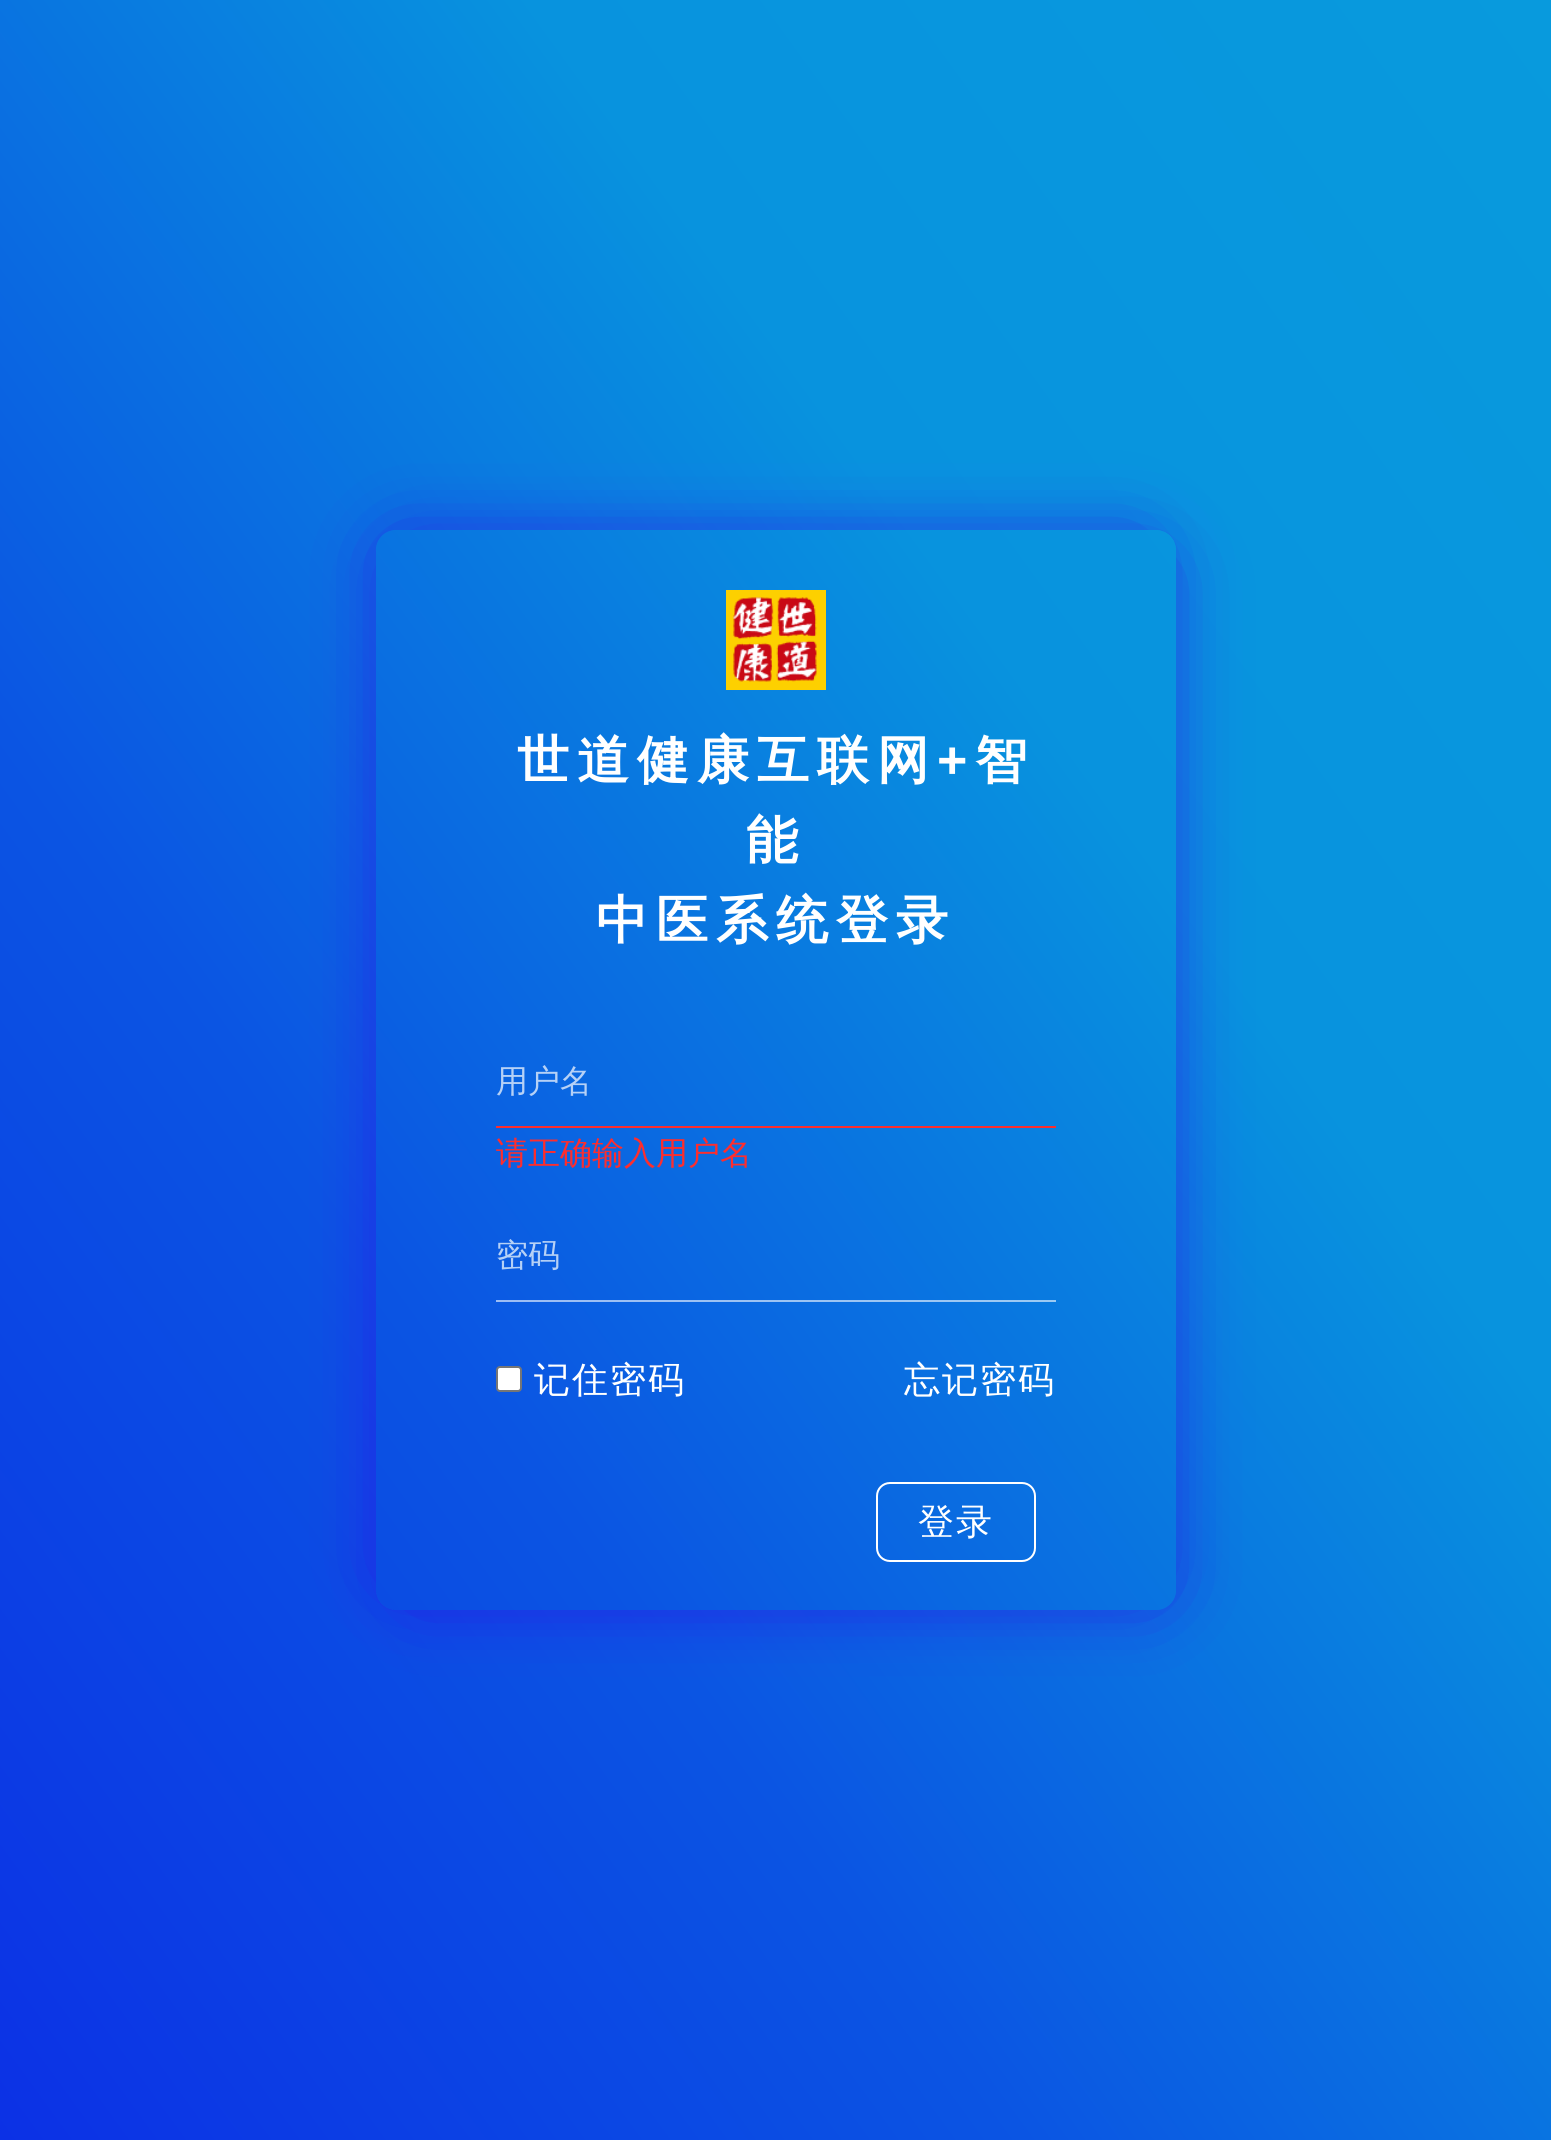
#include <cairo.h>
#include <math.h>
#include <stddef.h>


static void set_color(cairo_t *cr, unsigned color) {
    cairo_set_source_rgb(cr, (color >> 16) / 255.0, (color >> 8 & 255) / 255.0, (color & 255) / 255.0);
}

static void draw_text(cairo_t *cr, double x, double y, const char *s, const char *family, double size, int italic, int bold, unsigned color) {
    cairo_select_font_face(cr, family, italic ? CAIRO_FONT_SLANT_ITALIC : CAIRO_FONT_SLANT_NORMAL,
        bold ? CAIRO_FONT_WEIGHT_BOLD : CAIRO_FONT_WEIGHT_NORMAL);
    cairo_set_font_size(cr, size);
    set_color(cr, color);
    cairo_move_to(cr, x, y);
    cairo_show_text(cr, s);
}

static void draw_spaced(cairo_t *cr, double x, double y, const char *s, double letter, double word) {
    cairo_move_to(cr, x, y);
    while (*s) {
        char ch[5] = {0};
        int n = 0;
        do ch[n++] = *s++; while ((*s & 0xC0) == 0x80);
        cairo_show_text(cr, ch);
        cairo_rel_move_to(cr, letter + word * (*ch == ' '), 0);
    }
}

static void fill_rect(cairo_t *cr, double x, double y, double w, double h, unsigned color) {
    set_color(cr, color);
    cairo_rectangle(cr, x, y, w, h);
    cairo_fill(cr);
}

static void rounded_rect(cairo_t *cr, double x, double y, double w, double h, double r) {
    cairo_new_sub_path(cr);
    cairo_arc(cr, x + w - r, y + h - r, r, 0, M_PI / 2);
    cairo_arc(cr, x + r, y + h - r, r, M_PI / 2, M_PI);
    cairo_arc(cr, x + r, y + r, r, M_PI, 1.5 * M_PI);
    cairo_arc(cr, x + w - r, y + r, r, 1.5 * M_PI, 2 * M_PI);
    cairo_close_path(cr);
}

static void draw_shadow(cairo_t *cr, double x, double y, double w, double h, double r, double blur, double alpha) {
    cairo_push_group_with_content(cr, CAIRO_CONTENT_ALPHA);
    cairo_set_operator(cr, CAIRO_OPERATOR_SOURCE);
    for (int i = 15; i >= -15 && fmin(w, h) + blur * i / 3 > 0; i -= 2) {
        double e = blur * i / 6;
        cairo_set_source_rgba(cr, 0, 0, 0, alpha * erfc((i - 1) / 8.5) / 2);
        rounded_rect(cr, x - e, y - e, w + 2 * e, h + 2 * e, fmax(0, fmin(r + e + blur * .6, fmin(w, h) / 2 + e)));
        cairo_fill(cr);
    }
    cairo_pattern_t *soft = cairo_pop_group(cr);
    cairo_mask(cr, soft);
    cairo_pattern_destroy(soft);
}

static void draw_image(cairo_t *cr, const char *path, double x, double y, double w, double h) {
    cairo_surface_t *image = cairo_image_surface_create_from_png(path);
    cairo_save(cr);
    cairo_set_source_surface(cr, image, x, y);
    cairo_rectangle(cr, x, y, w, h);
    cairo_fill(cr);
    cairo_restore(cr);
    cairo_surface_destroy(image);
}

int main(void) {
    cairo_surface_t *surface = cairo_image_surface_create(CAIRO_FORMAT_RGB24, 1551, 2140);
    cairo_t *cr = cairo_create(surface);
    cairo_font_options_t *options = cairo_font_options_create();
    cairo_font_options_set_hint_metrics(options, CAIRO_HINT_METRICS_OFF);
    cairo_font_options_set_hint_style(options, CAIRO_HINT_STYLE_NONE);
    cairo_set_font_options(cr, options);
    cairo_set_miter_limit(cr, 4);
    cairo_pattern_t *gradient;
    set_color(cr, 0xFFFFFF);
    cairo_paint(cr);
    gradient = cairo_pattern_create_linear(-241, 1808, 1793, 332);
    cairo_pattern_add_color_stop_rgba(gradient, 0, 0.047, 0.192, 0.898, 1);
    cairo_pattern_add_color_stop_rgba(gradient, 0.33, 0.043, 0.333, 0.89, 1);
    cairo_pattern_add_color_stop_rgba(gradient, 0.67, 0.031, 0.576, 0.871, 1);
    cairo_pattern_add_color_stop_rgba(gradient, 1, 0.031, 0.604, 0.867, 1);
    cairo_set_source(cr, gradient);
    cairo_pattern_destroy(gradient);
    cairo_rectangle(cr, 0, 0, 1551, 2140);
    cairo_fill(cr);
    gradient = cairo_pattern_create_linear(-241, 1808, 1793, 332);
    cairo_pattern_add_color_stop_rgba(gradient, 0, 0.62, 0.678, 0.961, 1);
    cairo_pattern_add_color_stop_rgba(gradient, 0.33, 0.616, 0.733, 0.957, 1);
    cairo_pattern_add_color_stop_rgba(gradient, 0.67, 0.612, 0.831, 0.949, 1);
    cairo_pattern_add_color_stop_rgba(gradient, 1, 0.612, 0.843, 0.945, 1);
    cairo_set_source(cr, gradient);
    cairo_pattern_destroy(gradient);
    cairo_rectangle(cr, 496, 1300, 560, 2);
    cairo_fill(cr);
    cairo_save(cr);
    cairo_set_fill_rule(cr, CAIRO_FILL_RULE_EVEN_ODD);
    cairo_new_path(cr);
    cairo_move_to(cr, 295, 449);
    cairo_line_to(cr, 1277, 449);
    cairo_line_to(cr, 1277, 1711);
    cairo_line_to(cr, 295, 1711);
    cairo_close_path(cr);
    cairo_move_to(cr, 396, 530);
    cairo_line_to(cr, 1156, 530);
    cairo_curve_to(cr, 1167, 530, 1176, 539, 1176, 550);
    cairo_line_to(cr, 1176, 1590);
    cairo_curve_to(cr, 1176, 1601, 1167, 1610, 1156, 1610);
    cairo_line_to(cr, 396, 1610);
    cairo_curve_to(cr, 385, 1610, 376, 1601, 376, 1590);
    cairo_line_to(cr, 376, 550);
    cairo_curve_to(cr, 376, 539, 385, 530, 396, 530);
    cairo_close_path(cr);
    cairo_clip(cr);
    set_color(cr, 0x3700EB);
    draw_shadow(cr, 416, 570, 740, 1020, 0, 40, 0.7);
    cairo_restore(cr);
    cairo_save(cr);
    cairo_set_fill_rule(cr, CAIRO_FILL_RULE_EVEN_ODD);
    cairo_new_path(cr);
    cairo_move_to(cr, 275, 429);
    cairo_line_to(cr, 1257, 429);
    cairo_line_to(cr, 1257, 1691);
    cairo_line_to(cr, 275, 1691);
    cairo_close_path(cr);
    cairo_move_to(cr, 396, 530);
    cairo_line_to(cr, 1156, 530);
    cairo_curve_to(cr, 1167, 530, 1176, 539, 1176, 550);
    cairo_line_to(cr, 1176, 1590);
    cairo_curve_to(cr, 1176, 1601, 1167, 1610, 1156, 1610);
    cairo_line_to(cr, 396, 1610);
    cairo_curve_to(cr, 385, 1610, 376, 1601, 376, 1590);
    cairo_line_to(cr, 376, 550);
    cairo_curve_to(cr, 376, 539, 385, 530, 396, 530);
    cairo_close_path(cr);
    cairo_clip(cr);
    set_color(cr, 0x3700EB);
    draw_shadow(cr, 396, 550, 740, 1020, 0, 40, 0.7);
    cairo_restore(cr);
    draw_image(cr, "assets/img1.png", 726, 590, 100, 100);
    cairo_select_font_face(cr, "WenQuanYi Zen Hei", CAIRO_FONT_SLANT_NORMAL, CAIRO_FONT_WEIGHT_BOLD);
    cairo_set_font_size(cr, 52);
    set_color(cr, 0xFFFFFF);
    draw_spaced(cr, 517, 778, "世道健康互联网", 8, 0);
    cairo_select_font_face(cr, "Liberation Sans", CAIRO_FONT_SLANT_NORMAL, CAIRO_FONT_WEIGHT_BOLD);
    draw_spaced(cr, 937, 778, "+", 8, 0);
    cairo_select_font_face(cr, "WenQuanYi Zen Hei", CAIRO_FONT_SLANT_NORMAL, CAIRO_FONT_WEIGHT_BOLD);
    draw_spaced(cr, 975, 778, "智", 8, 0);
    draw_spaced(cr, 746, 858, "能", 8, 0);
    draw_spaced(cr, 596, 938, "中医系统登录", 8, 0);
    draw_text(cr, 496, 1092, "用户名", "WenQuanYi Zen Hei Medium", 32, 0, 0, 0xB6D1F6);
    fill_rect(cr, 496, 1126, 560, 2, 0xFE2D2D);
    draw_text(cr, 496, 1164, "请正确输入用户名", "WenQuanYi Zen Hei Medium", 32, 0, 0, 0xFE2D2D);
    draw_text(cr, 496, 1266, "密码", "WenQuanYi Zen Hei Medium", 32, 0, 0, 0xB6D1F6);
    set_color(cr, 0xFFFFFF);
    rounded_rect(cr, 497, 1367, 24, 24, 3);
    cairo_fill_preserve(cr);
    set_color(cr, 0x767676);
    cairo_stroke(cr);
    cairo_set_font_size(cr, 36);
    set_color(cr, 0xFFFFFF);
    draw_spaced(cr, 534, 1392, "记住密码", 2, 0);
    draw_spaced(cr, 904, 1392, "忘记密码", 2, 0);
    rounded_rect(cr, 877, 1483, 158, 78, 13);
    cairo_stroke(cr);
    draw_spaced(cr, 918, 1534, "登录", 2, 0);
    cairo_surface_write_to_png(surface, "output.png");
    cairo_font_options_destroy(options);
    cairo_destroy(cr);
    cairo_surface_destroy(surface);
    return 0;
}
